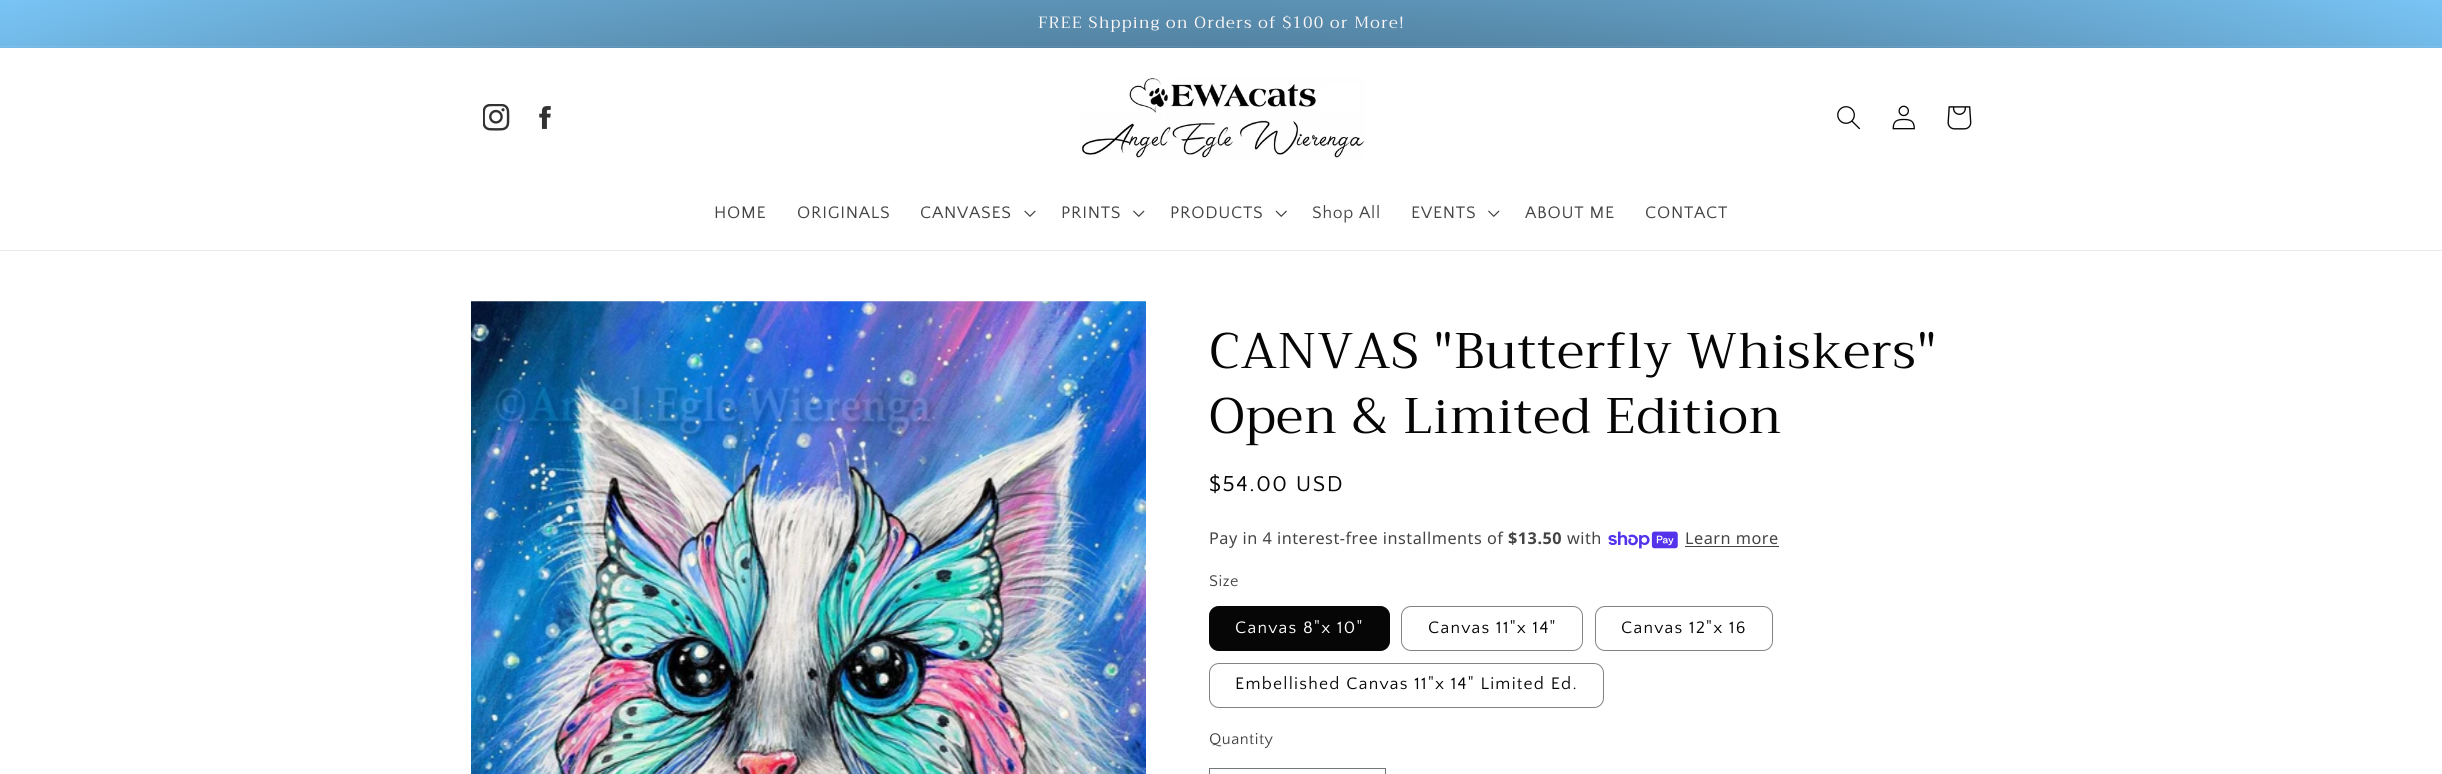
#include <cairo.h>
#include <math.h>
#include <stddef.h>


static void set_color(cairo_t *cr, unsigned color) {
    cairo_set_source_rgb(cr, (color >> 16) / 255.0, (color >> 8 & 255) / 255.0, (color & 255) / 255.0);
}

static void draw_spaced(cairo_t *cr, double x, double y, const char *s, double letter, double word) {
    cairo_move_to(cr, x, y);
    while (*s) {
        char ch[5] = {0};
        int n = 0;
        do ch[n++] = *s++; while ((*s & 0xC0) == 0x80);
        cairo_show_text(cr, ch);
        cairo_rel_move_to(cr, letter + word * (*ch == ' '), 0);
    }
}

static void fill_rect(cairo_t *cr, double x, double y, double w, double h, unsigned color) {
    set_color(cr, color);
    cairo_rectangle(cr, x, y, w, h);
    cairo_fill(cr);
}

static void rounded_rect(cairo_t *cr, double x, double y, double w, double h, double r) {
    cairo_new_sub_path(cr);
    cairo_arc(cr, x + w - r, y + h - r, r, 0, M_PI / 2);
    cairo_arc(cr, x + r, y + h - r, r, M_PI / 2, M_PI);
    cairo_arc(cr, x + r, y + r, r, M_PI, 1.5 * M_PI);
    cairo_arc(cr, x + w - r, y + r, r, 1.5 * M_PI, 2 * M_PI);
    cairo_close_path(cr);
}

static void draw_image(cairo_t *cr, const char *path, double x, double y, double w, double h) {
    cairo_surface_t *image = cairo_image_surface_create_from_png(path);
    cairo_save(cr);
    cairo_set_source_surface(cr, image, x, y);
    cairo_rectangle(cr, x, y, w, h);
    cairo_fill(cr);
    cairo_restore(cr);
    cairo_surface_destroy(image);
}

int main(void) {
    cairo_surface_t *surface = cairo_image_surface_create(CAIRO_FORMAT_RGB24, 2442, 774);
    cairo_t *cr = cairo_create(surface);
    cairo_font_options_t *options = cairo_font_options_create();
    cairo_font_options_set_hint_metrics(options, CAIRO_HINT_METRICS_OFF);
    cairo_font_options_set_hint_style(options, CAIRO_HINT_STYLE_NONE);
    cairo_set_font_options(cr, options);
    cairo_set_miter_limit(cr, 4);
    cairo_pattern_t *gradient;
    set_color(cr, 0xFFFFFF);
    cairo_paint(cr);
    gradient = cairo_pattern_create_radial(0, 0, 0, 0, 0, 1);
    cairo_pattern_set_matrix(gradient, &(cairo_matrix_t){1.0 / 1727, 0, 0, 1.0 / 548, -1.0 * 1221 / 1727, -1.0 * 388 / 548});
    cairo_pattern_add_color_stop_rgba(gradient, 0, 0.09, 0.094, 0.098, 1);
    cairo_pattern_add_color_stop_rgba(gradient, 1, 0.471, 0.769, 0.961, 1);
    cairo_set_source(cr, gradient);
    cairo_pattern_destroy(gradient);
    cairo_rectangle(cr, 0, 0, 2442, 48);
    cairo_fill(cr);
    gradient = cairo_pattern_create_radial(0, 0, 0, 0, 0, 1);
    cairo_pattern_set_matrix(gradient, &(cairo_matrix_t){1.0 / 1727, 0, 0, 1.0 / 548, -1.0 * 1221 / 1727, -1.0 * 388 / 548});
    cairo_pattern_add_color_stop_rgba(gradient, 0, 0.161, 0.165, 0.169, 1);
    cairo_pattern_add_color_stop_rgba(gradient, 1, 0.514, 0.784, 0.961, 1);
    cairo_set_source(cr, gradient);
    cairo_pattern_destroy(gradient);
    cairo_rectangle(cr, 0, 46, 2442, 1);
    cairo_fill(cr);
    cairo_select_font_face(cr, "Trirong", CAIRO_FONT_SLANT_NORMAL, CAIRO_FONT_WEIGHT_NORMAL);
    cairo_set_font_size(cr, 16.25);
    set_color(cr, 0xFCF7F7);
    draw_spaced(cr, 1038, 28, "FREE Shpping on Orders of $100 or More!", 1.25, 0);
    fill_rect(cr, 0, 250, 2442, 1, 0xEBEBEB);
    draw_image(cr, "assets/img1.png", 483, 104, 27, 27);
    draw_image(cr, "assets/img2.png", 539, 106, 12, 23);
    draw_image(cr, "assets/img3.png", 1080, 78, 285, 81);
    draw_image(cr, "assets/img4.png", 1837, 106, 23, 24);
    draw_image(cr, "assets/img5.png", 1892, 105, 23, 25);
    draw_image(cr, "assets/img6.png", 1947, 106, 25, 24);
    cairo_select_font_face(cr, "Quattrocento Sans", CAIRO_FONT_SLANT_NORMAL, CAIRO_FONT_WEIGHT_NORMAL);
    cairo_set_font_size(cr, 17.5);
    set_color(cr, 0x444444);
    draw_spaced(cr, 714, 218, "HOME", 0.75, 0);
    draw_spaced(cr, 797, 218, "ORIGINALS", 0.75, 0);
    draw_spaced(cr, 920, 218, "CANVASES", 0.75, 0);
    draw_image(cr, "assets/img7.png", 1024, 210, 12, 7);
    draw_spaced(cr, 1061, 218, "PRINTS", 0.75, 0);
    draw_image(cr, "assets/img8.png", 1133, 210, 12, 7);
    draw_spaced(cr, 1170, 218, "PRODUCTS", 0.75, 0);
    draw_image(cr, "assets/img9.png", 1275, 210, 12, 7);
    draw_spaced(cr, 1312, 218, "Shop All", 0.75, 0);
    draw_spaced(cr, 1411, 218, "EVENTS", 0.75, 0);
    draw_image(cr, "assets/img8.png", 1488, 210, 12, 7);
    draw_spaced(cr, 1525, 218, "ABOUT ME", 0.75, 0);
    draw_spaced(cr, 1645, 218, "CONTACT", 0.75, 0);
    draw_image(cr, "assets/img10.png", 471, 301, 675, 473);
    cairo_select_font_face(cr, "Trirong", CAIRO_FONT_SLANT_NORMAL, CAIRO_FONT_WEIGHT_NORMAL);
    cairo_set_font_size(cr, 50);
    set_color(cr, 0x060606);
    draw_spaced(cr, 1209, 368, "CANVAS \"Butterfly Whiskers\"", 0.75, 0);
    draw_spaced(cr, 1209, 433, "Open & Limited Edition", 0.75, 0);
    cairo_select_font_face(cr, "Quattrocento Sans", CAIRO_FONT_SLANT_NORMAL, CAIRO_FONT_WEIGHT_NORMAL);
    cairo_set_font_size(cr, 22.5);
    draw_spaced(cr, 1209, 491, "$54.00 USD", 1.6, 0);
    cairo_select_font_face(cr, "Noto Sans", CAIRO_FONT_SLANT_NORMAL, CAIRO_FONT_WEIGHT_NORMAL);
    cairo_set_font_size(cr, 16.25);
    set_color(cr, 0x444444);
    draw_spaced(cr, 1209, 544, "Pay in 4 interest-free installments of", 0.5, 0);
    cairo_select_font_face(cr, "Noto Sans", CAIRO_FONT_SLANT_NORMAL, CAIRO_FONT_WEIGHT_BOLD);
    draw_spaced(cr, 1508, 544, "$13.50", 0.5, 0);
    cairo_select_font_face(cr, "Noto Sans", CAIRO_FONT_SLANT_NORMAL, CAIRO_FONT_WEIGHT_NORMAL);
    draw_spaced(cr, 1567, 544, "with", 0.5, 0);
    draw_image(cr, "assets/img11.png", 1608, 531, 70, 18);
    draw_spaced(cr, 1685, 544, "Learn more", 0.5, 0);
    fill_rect(cr, 1685, 546, 94, 1, 0x444444);
    cairo_select_font_face(cr, "Quattrocento Sans", CAIRO_FONT_SLANT_NORMAL, CAIRO_FONT_WEIGHT_NORMAL);
    draw_spaced(cr, 1209, 586, "Size", 0.5, 0);
    set_color(cr, 0x060606);
    rounded_rect(cr, 1209, 606, 181, 45, 10);
    cairo_fill(cr);
    rounded_rect(cr, 1209.5, 606.5, 180, 44, 9.5);
    cairo_set_source_rgba(cr, 0.024, 0.024, 0.024, 0.5);
    cairo_set_line_width(cr, 1);
    cairo_stroke(cr);
    cairo_set_font_size(cr, 17.5);
    set_color(cr, 0xFFFFFF);
    draw_spaced(cr, 1235, 633, "Canvas 8\"x 10\"", 1.25, 0);
    rounded_rect(cr, 1401.5, 606.5, 181, 44, 9.5);
    set_color(cr, 0x838383);
    cairo_stroke(cr);
    set_color(cr, 0x060606);
    draw_spaced(cr, 1428, 633, "Canvas 11\"x 14\"", 1.25, 0);
    rounded_rect(cr, 1595.5, 606.5, 177, 44, 9.5);
    set_color(cr, 0x838383);
    cairo_stroke(cr);
    set_color(cr, 0x060606);
    draw_spaced(cr, 1621, 633, "Canvas 12\"x 16", 1.25, 0);
    rounded_rect(cr, 1209.5, 663.5, 394, 44, 9.5);
    set_color(cr, 0x838383);
    cairo_stroke(cr);
    set_color(cr, 0x060606);
    draw_spaced(cr, 1235, 689, "Embellished Canvas 11\"x 14\" Limited Ed.", 1.25, 0);
    cairo_set_font_size(cr, 16.25);
    set_color(cr, 0x444444);
    draw_spaced(cr, 1209, 744, "Quantity", 0.5, 0);
    cairo_rectangle(cr, 1209.5, 768.5, 176, 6);
    set_color(cr, 0x767676);
    cairo_stroke(cr);
    cairo_surface_write_to_png(surface, "output.png");
    cairo_font_options_destroy(options);
    cairo_destroy(cr);
    cairo_surface_destroy(surface);
    return 0;
}
